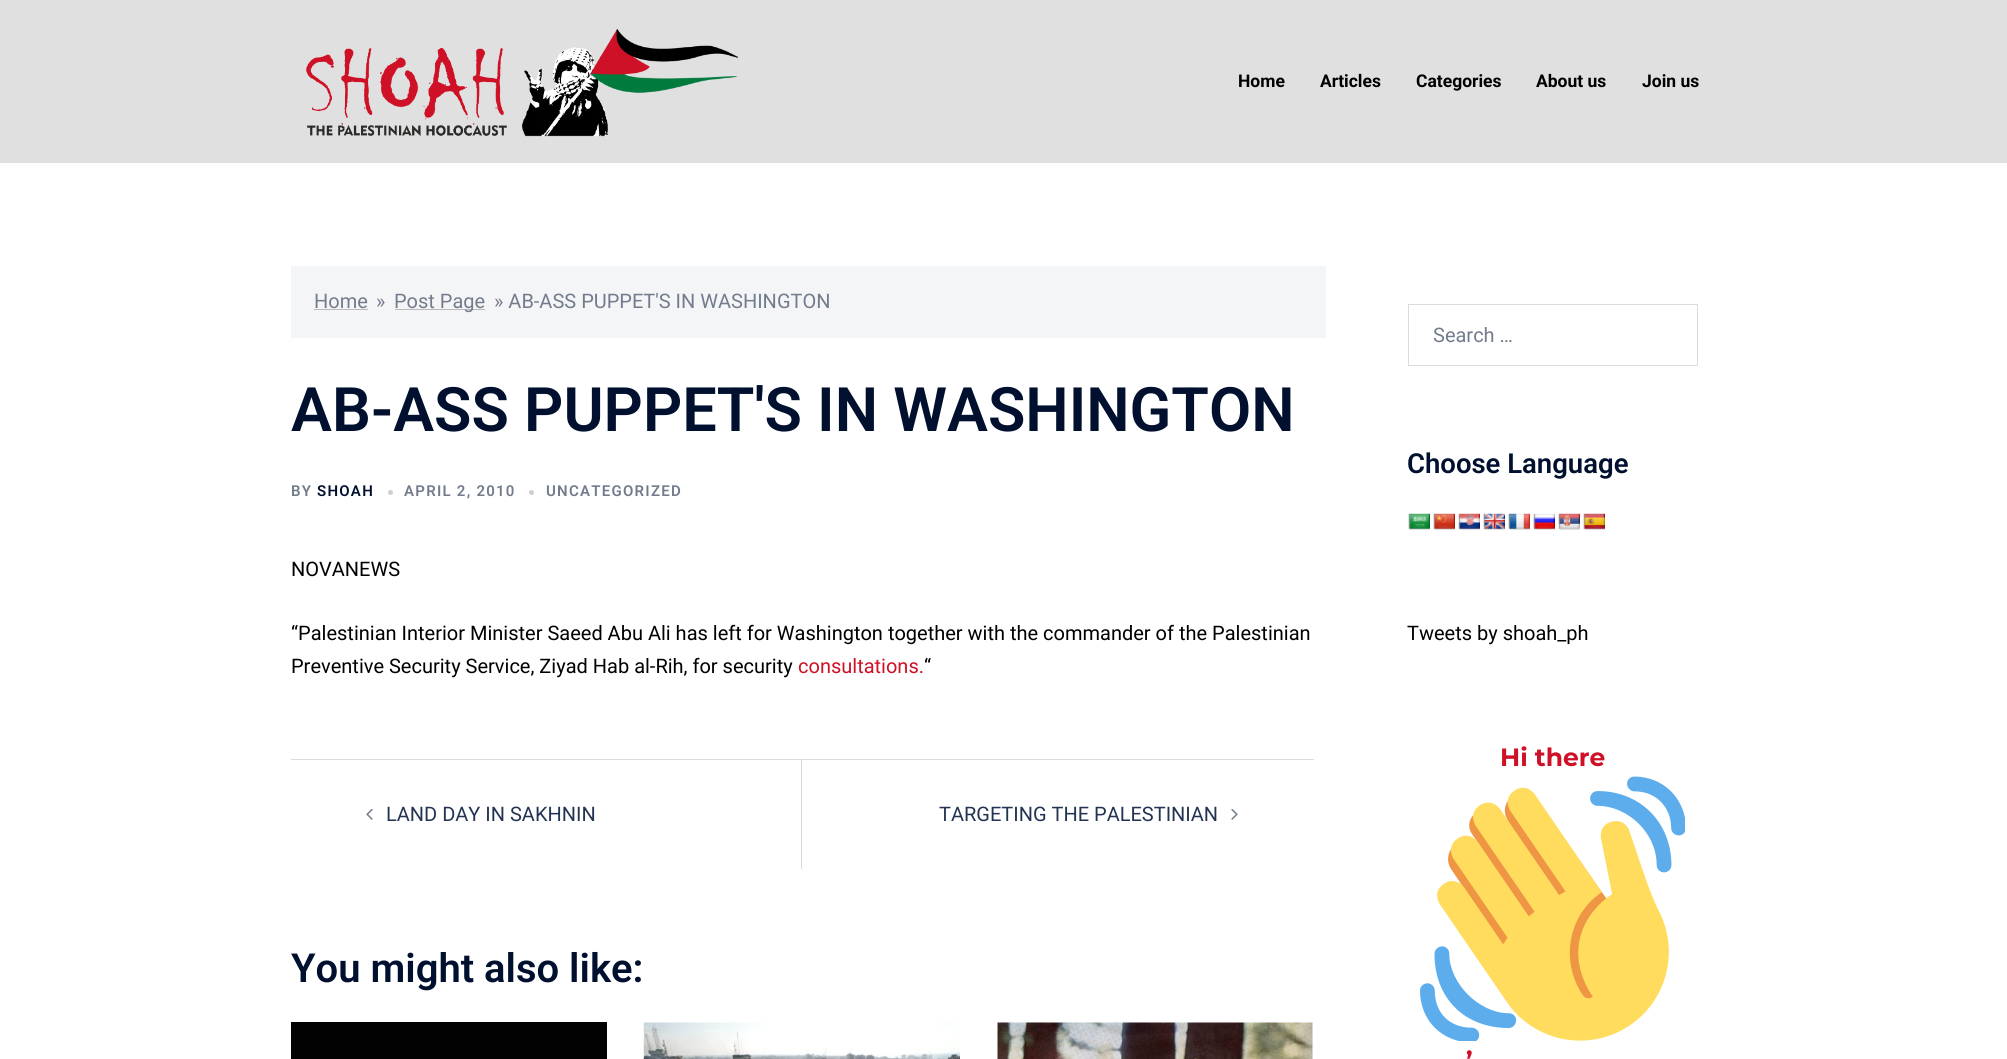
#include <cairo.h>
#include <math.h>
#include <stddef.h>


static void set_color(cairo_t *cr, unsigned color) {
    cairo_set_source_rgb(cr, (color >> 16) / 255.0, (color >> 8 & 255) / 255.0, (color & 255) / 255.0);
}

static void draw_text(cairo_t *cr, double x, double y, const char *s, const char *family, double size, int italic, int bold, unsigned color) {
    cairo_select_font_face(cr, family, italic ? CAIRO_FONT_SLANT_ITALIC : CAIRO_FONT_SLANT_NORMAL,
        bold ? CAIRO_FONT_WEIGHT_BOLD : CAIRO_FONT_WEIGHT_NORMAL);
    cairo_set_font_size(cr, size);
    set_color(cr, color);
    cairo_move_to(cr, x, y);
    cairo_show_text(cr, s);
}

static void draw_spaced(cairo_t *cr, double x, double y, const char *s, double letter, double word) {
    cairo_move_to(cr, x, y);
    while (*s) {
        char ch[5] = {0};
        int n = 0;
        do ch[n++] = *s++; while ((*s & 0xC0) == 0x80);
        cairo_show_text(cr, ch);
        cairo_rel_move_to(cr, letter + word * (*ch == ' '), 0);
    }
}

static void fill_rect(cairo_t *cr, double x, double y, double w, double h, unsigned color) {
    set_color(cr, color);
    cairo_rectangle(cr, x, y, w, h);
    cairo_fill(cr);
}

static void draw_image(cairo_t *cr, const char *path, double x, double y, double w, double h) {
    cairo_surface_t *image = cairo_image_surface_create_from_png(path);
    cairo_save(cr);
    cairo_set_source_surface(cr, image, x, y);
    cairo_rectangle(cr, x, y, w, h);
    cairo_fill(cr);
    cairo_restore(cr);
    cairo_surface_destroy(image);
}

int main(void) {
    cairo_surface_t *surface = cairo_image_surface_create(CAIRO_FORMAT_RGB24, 2007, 1059);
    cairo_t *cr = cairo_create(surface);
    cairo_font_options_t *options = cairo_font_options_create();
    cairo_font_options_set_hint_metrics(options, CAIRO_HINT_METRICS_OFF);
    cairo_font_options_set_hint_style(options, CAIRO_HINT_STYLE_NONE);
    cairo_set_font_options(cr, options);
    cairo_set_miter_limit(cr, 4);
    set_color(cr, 0xFFFFFF);
    cairo_paint(cr);
    fill_rect(cr, 0, 0, 2007, 163, 0xE0E0E0);
    draw_image(cr, "assets/img1.png", 306, 28, 432, 109);
    draw_text(cr, 1238, 87, "Home", "Roboto", 17.5, 0, 1, 0x000000);
    draw_text(cr, 1320, 87, "Articles", "Roboto", 17.5, 0, 1, 0x000000);
    draw_text(cr, 1416, 87, "Categories", "Roboto", 17.5, 0, 1, 0x000000);
    draw_text(cr, 1536, 87, "About us", "Roboto", 17.5, 0, 1, 0x000000);
    draw_text(cr, 1642, 87, "Join us", "Roboto", 17.5, 0, 1, 0x000000);
    fill_rect(cr, 291, 266, 1035, 72, 0xF4F5F7);
    draw_text(cr, 314, 308, "Home", "Roboto", 20, 0, 0, 0x737C8C);
    fill_rect(cr, 314, 309, 54, 1, 0xBABABA);
    draw_text(cr, 376, 308, "»", "Roboto", 20, 0, 0, 0x737C8C);
    fill_rect(cr, 395, 309, 90, 1, 0xBABABA);
    draw_text(cr, 394, 308, "Post Page", "Roboto", 20, 0, 0, 0x737C8C);
    draw_text(cr, 494, 308, "» AB-ASS PUPPET'S IN WASHINGTON", "Roboto", 20, 0, 0, 0x737C8C);
    draw_text(cr, 291, 431, "AB-ASS PUPPET'S IN WASHINGTON", "Roboto SemiBold", 61.25, 0, 0, 0x00102E);
    cairo_set_font_size(cr, 15);
    set_color(cr, 0x737C8C);
    draw_spaced(cr, 291, 496, "BY", 1.25, 0);
    set_color(cr, 0x00102E);
    draw_spaced(cr, 317, 496, "SHOAH", 1.25, 0);
    set_color(cr, 0xCCCFD5);
    cairo_new_path(cr);
    cairo_arc(cr, 390.5, 492.5, 2.5, 0, 2 * M_PI);
    cairo_fill(cr);
    set_color(cr, 0x737C8C);
    draw_spaced(cr, 404, 496, "APRIL 2, 2010", 1.25, 0);
    set_color(cr, 0xCCCFD5);
    cairo_new_path(cr);
    cairo_arc(cr, 531.5, 492.5, 2.5, 0, 2 * M_PI);
    cairo_fill(cr);
    set_color(cr, 0x737C8C);
    draw_spaced(cr, 546, 496, "UNCATEGORIZED", 1.25, 0);
    draw_text(cr, 291, 576, "NOVANEWS", "Roboto", 20, 0, 0, 0x000000);
    draw_text(cr, 291, 640, "“Palestinian Interior Minister Saeed Abu Ali has left for Washington together with the commander of the Palestinian", "Roboto", 20, 0, 0, 0x000000);
    draw_text(cr, 291, 673, "Preventive Security Service, Ziyad Hab al-Rih, for security", "Roboto", 20, 0, 0, 0x000000);
    draw_text(cr, 798, 673, "consultations.", "Roboto", 20, 0, 0, 0xCE1126);
    draw_text(cr, 924, 673, "“", "Roboto", 20, 0, 0, 0x000000);
    fill_rect(cr, 291, 759, 1023, 1, 0xDBDBDB);
    fill_rect(cr, 801, 760, 1, 109, 0xDBDBDB);
    draw_image(cr, "assets/img2.png", 366, 809, 7, 11);
    draw_text(cr, 386, 821, "LAND DAY IN SAKHNIN", "Roboto", 20, 0, 0, 0x233452);
    draw_text(cr, 939, 821, "TARGETING THE PALESTINIAN", "Roboto", 20, 0, 0, 0x233452);
    draw_image(cr, "assets/img3.png", 1231, 809, 7, 11);
    draw_text(cr, 291, 982, "You might also like:", "Roboto SemiBold", 40, 0, 0, 0x00102E);
    fill_rect(cr, 291, 1022, 316, 37, 0x020202);
    draw_image(cr, "assets/img4.png", 643, 1022, 317, 37);
    draw_image(cr, "assets/img5.png", 997, 1022, 316, 37);
    cairo_rectangle(cr, 1408.5, 304.5, 289, 61);
    set_color(cr, 0xDBDBDB);
    cairo_set_line_width(cr, 1);
    cairo_stroke(cr);
    draw_text(cr, 1433, 342, "Search …", "Roboto", 20, 0, 0, 0x737C8C);
    draw_text(cr, 1407, 473, "Choose Language", "Roboto SemiBold", 27.5, 0, 0, 0x00102E);
    draw_image(cr, "assets/img6.png", 1408, 513, 22, 17);
    draw_image(cr, "assets/img7.png", 1433, 513, 22, 17);
    draw_image(cr, "assets/img8.png", 1458, 513, 22, 17);
    draw_image(cr, "assets/img9.png", 1483, 513, 22, 17);
    draw_image(cr, "assets/img10.png", 1508, 513, 22, 17);
    draw_image(cr, "assets/img11.png", 1533, 513, 22, 17);
    draw_image(cr, "assets/img12.png", 1558, 513, 22, 17);
    draw_image(cr, "assets/img13.png", 1583, 513, 22, 17);
    draw_text(cr, 1407, 640, "Tweets by shoah_ph", "Roboto", 20, 0, 0, 0x000000);
    draw_text(cr, 1500, 766, "Hi there", "Montserrat", 25, 0, 1, 0xCE1126);
    draw_image(cr, "assets/img14.png", 1420, 776, 265, 265);
    draw_text(cr, 1466, 1069, "’", "Montserrat", 25, 0, 1, 0xCE1126);
    cairo_surface_write_to_png(surface, "output.png");
    cairo_font_options_destroy(options);
    cairo_destroy(cr);
    cairo_surface_destroy(surface);
    return 0;
}
